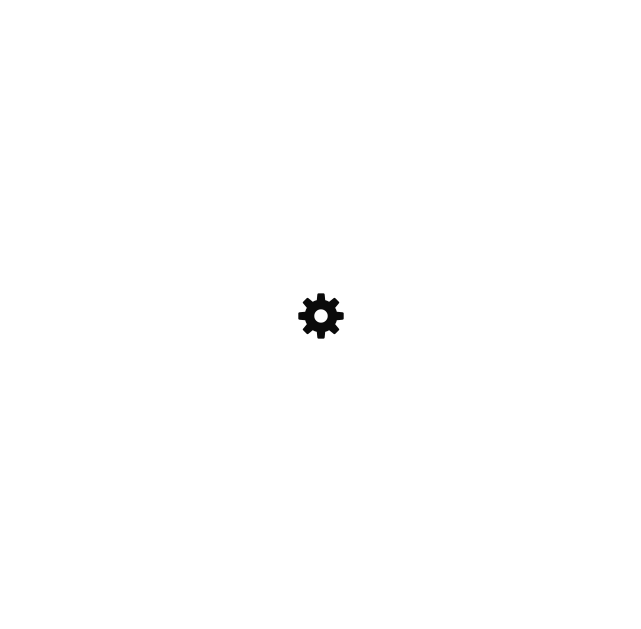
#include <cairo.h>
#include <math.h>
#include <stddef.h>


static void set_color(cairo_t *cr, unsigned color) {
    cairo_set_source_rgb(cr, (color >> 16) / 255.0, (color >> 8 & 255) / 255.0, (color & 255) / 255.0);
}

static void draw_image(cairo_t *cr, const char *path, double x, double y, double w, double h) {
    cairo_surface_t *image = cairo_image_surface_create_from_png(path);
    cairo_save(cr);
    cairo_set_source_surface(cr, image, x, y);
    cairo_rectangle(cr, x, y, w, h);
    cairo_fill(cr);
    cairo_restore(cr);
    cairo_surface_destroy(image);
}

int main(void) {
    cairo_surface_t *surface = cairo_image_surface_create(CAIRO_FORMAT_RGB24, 641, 629);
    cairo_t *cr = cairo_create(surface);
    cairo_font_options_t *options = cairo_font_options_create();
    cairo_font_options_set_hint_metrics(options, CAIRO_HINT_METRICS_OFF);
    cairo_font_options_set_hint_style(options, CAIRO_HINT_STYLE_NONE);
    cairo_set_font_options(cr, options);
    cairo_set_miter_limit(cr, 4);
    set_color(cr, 0xFFFFFF);
    cairo_paint(cr);
    draw_image(cr, "assets/img1.png", 298, 293, 46, 46);
    cairo_surface_write_to_png(surface, "output.png");
    cairo_font_options_destroy(options);
    cairo_destroy(cr);
    cairo_surface_destroy(surface);
    return 0;
}
